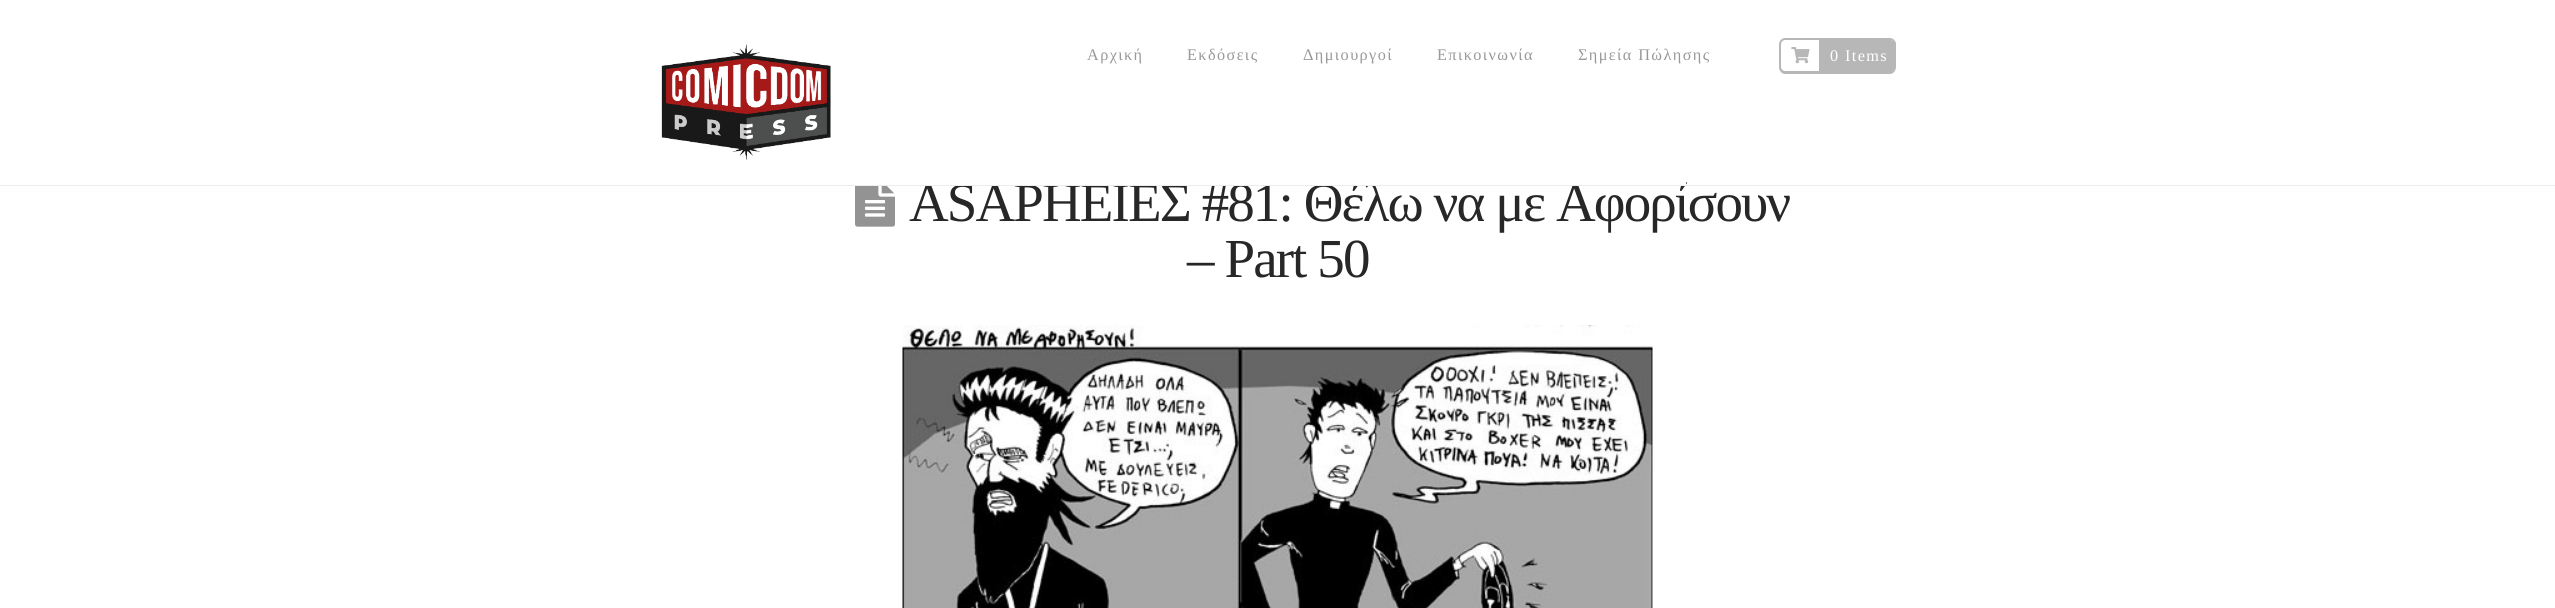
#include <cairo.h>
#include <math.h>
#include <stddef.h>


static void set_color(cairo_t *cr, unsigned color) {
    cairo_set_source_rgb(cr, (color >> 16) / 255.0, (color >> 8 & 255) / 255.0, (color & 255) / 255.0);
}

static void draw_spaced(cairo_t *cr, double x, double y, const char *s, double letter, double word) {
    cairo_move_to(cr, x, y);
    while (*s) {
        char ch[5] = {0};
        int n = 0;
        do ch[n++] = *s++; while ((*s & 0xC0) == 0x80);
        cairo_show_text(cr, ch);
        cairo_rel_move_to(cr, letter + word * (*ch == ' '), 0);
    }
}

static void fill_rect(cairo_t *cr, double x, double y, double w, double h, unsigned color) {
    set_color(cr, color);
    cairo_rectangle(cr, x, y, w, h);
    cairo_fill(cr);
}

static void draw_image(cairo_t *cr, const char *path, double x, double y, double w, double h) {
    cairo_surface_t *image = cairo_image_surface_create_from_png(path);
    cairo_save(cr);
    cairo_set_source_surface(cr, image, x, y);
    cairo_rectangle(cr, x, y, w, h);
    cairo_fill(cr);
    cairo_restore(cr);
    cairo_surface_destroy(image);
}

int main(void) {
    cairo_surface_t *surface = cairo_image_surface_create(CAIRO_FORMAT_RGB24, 2555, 608);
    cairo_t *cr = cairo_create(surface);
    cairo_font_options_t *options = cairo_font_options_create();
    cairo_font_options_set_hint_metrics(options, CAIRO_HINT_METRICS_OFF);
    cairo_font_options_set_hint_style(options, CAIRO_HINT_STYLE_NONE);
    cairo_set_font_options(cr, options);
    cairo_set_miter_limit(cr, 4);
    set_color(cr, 0xFFFFFF);
    cairo_paint(cr);
    cairo_select_font_face(cr, "Liberation Serif", CAIRO_FONT_SLANT_NORMAL, CAIRO_FONT_WEIGHT_NORMAL);
    cairo_set_font_size(cr, 55);
    set_color(cr, 0x272727);
    draw_spaced(cr, 909, 221, "ASAPHΕΙΕΣ #81: Θέλω να με Αφορίσουν", -1.9, 0);
    fill_rect(cr, 926, 182, 760, 3, 0xFFFFFF);
    fill_rect(cr, 0, 185, 2555, 1, 0xECECEC);
    draw_image(cr, "assets/img1.png", 661, 44, 170, 116);
    cairo_set_font_size(cr, 16.25);
    set_color(cr, 0x999999);
    draw_spaced(cr, 1087, 60, "Αρχική", 1.4, 0);
    draw_spaced(cr, 1187, 60, "Εκδόσεις", 1.4, 0);
    draw_spaced(cr, 1303, 60, "Δημιουργοί", 1.4, 0);
    draw_spaced(cr, 1437, 60, "Επικοινωνία", 1.4, 0);
    draw_spaced(cr, 1578, 60, "Σημεία Πώλησης", 1.4, 0);
    set_color(cr, 0xB7B7B7);
    cairo_set_fill_rule(cr, CAIRO_FILL_RULE_EVEN_ODD);
    cairo_new_path(cr);
    cairo_move_to(cr, 1785, 38);
    cairo_line_to(cr, 1890, 38);
    cairo_curve_to(cr, 1893, 38, 1896, 41, 1896, 44);
    cairo_line_to(cr, 1896, 67);
    cairo_curve_to(cr, 1896, 71, 1893, 74, 1890, 74);
    cairo_line_to(cr, 1785, 74);
    cairo_curve_to(cr, 1782, 74, 1779, 71, 1779, 67);
    cairo_line_to(cr, 1779, 44);
    cairo_curve_to(cr, 1779, 41, 1782, 38, 1785, 38);
    cairo_close_path(cr);
    cairo_move_to(cr, 1785, 40);
    cairo_line_to(cr, 1890, 40);
    cairo_curve_to(cr, 1893, 40, 1896, 42, 1896, 44);
    cairo_line_to(cr, 1896, 67);
    cairo_curve_to(cr, 1896, 69, 1893, 71, 1890, 71);
    cairo_line_to(cr, 1785, 71);
    cairo_curve_to(cr, 1783, 71, 1781, 69, 1781, 67);
    cairo_line_to(cr, 1781, 44);
    cairo_curve_to(cr, 1781, 42, 1783, 40, 1785, 40);
    cairo_close_path(cr);
    cairo_fill(cr);
    draw_image(cr, "assets/img2.png", 1791, 47, 19, 17);
    cairo_set_fill_rule(cr, CAIRO_FILL_RULE_WINDING);
    cairo_new_path(cr);
    cairo_move_to(cr, 1819, 40);
    cairo_line_to(cr, 1890, 40);
    cairo_curve_to(cr, 1893, 40, 1895, 41, 1896, 43);
    cairo_line_to(cr, 1896, 68);
    cairo_curve_to(cr, 1895, 69, 1894, 71, 1892, 71);
    cairo_line_to(cr, 1819, 71);
    cairo_close_path(cr);
    cairo_fill(cr);
    set_color(cr, 0xFFFFFF);
    draw_spaced(cr, 1830, 61, "0 Items", 1.4, 0);
    draw_image(cr, "assets/img3.png", 855, 186, 40, 41);
    cairo_set_font_size(cr, 55);
    set_color(cr, 0x272727);
    draw_spaced(cr, 1187, 277, "– Part 50", -1.9, 0);
    draw_image(cr, "assets/img4.png", 902, 325, 751, 283);
    cairo_surface_write_to_png(surface, "output.png");
    cairo_font_options_destroy(options);
    cairo_destroy(cr);
    cairo_surface_destroy(surface);
    return 0;
}
